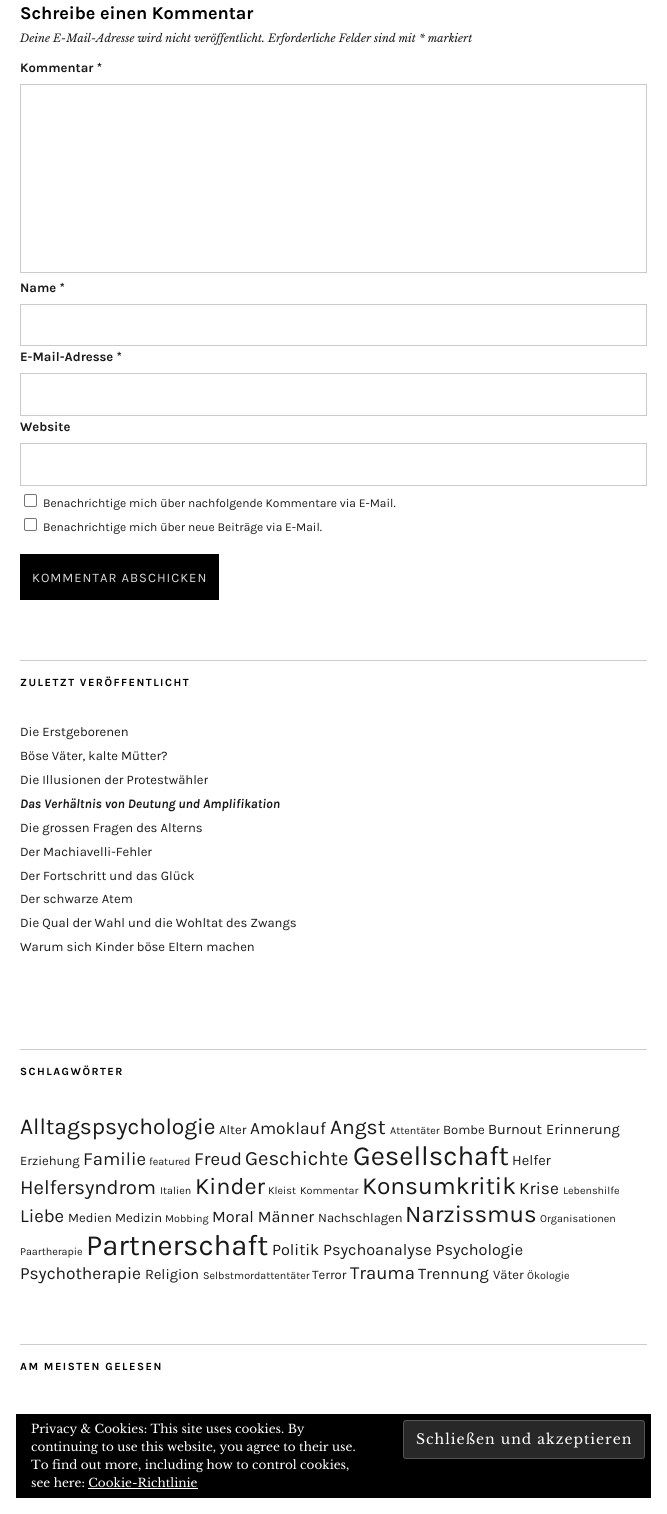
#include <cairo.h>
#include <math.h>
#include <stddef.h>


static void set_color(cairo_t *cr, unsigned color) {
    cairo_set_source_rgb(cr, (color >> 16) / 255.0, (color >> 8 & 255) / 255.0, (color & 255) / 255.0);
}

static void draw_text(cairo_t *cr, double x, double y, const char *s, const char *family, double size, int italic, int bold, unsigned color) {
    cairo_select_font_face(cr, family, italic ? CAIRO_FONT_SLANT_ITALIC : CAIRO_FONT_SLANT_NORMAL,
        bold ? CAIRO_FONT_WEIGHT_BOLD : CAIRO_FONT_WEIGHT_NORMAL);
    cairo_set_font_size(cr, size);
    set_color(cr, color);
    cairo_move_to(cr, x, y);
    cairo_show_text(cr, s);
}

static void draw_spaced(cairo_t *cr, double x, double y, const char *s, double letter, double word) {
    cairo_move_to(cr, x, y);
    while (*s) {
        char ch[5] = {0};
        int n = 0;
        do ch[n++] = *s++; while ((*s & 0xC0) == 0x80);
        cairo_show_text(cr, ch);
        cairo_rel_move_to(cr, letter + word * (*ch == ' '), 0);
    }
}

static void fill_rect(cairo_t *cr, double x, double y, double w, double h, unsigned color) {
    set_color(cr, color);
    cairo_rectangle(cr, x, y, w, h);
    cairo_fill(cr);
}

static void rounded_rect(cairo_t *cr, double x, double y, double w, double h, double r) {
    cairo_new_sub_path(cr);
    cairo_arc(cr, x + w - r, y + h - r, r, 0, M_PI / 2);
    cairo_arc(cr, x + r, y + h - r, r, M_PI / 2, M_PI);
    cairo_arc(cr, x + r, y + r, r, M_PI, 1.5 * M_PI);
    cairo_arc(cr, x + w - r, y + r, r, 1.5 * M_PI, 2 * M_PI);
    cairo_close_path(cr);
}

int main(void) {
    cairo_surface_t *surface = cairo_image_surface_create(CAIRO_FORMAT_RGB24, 667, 1514);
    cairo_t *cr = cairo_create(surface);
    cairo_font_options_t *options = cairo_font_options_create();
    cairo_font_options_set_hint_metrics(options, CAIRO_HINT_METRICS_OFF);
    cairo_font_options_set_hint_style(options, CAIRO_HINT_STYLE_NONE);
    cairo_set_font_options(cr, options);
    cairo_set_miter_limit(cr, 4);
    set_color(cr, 0xFFFFFF);
    cairo_paint(cr);
    draw_text(cr, 20, 19, "Schreibe einen Kommentar", "Karla", 18, 0, 1, 0x000000);
    draw_text(cr, 20, 42, "Deine E-Mail-Adresse wird nicht veröffentlicht. Erforderliche Felder sind mit * markiert", "Libre Baskerville", 11, 1, 0, 0x191919);
    draw_text(cr, 20, 72, "Kommentar *", "Karla", 13, 0, 1, 0x191919);
    cairo_rectangle(cr, 20.5, 84.5, 626, 188);
    set_color(cr, 0xCACACA);
    cairo_set_line_width(cr, 1);
    cairo_stroke(cr);
    draw_text(cr, 20, 292, "Name *", "Karla", 13, 0, 1, 0x191919);
    cairo_rectangle(cr, 20.5, 304.5, 626, 41);
    set_color(cr, 0xCACACA);
    cairo_stroke(cr);
    draw_text(cr, 20, 361, "E-Mail-Adresse *", "Karla", 13, 0, 1, 0x191919);
    cairo_rectangle(cr, 20.5, 373.5, 626, 42);
    set_color(cr, 0xCACACA);
    cairo_stroke(cr);
    draw_text(cr, 20, 431, "Website", "Karla", 13, 0, 1, 0x191919);
    cairo_rectangle(cr, 20.5, 443.5, 626, 42);
    set_color(cr, 0xCACACA);
    cairo_stroke(cr);
    rounded_rect(cr, 24.5, 494.5, 12, 12, 1.5);
    set_color(cr, 0x767676);
    cairo_stroke(cr);
    draw_text(cr, 43, 507, "Benachrichtige mich über nachfolgende Kommentare via E-Mail.", "Karla", 12, 0, 0, 0x191919);
    rounded_rect(cr, 24.5, 518.5, 12, 12, 1.5);
    set_color(cr, 0x767676);
    cairo_stroke(cr);
    draw_text(cr, 43, 531, "Benachrichtige mich über neue Beiträge via E-Mail.", "Karla", 12, 0, 0, 0x191919);
    fill_rect(cr, 20, 554, 199, 46, 0x000000);
    cairo_set_font_size(cr, 13);
    set_color(cr, 0xD9D9D9);
    draw_spaced(cr, 32, 582, "KOMMENTAR ABSCHICKEN", 1, 0);
    fill_rect(cr, 20, 660, 627, 1, 0xCCCCCC);
    fill_rect(cr, 20, 1049, 627, 1, 0xCCCCCC);
    cairo_select_font_face(cr, "Karla", CAIRO_FONT_SLANT_NORMAL, CAIRO_FONT_WEIGHT_BOLD);
    cairo_set_font_size(cr, 11);
    set_color(cr, 0x000000);
    draw_spaced(cr, 20, 686, "ZULETZT VERÖFFENTLICHT", 1.5, 0);
    draw_text(cr, 20, 736, "Die Erstgeborenen", "Karla", 13, 0, 0, 0x191919);
    draw_text(cr, 20, 760, "Böse Väter, kalte Mütter?", "Karla", 13, 0, 0, 0x191919);
    draw_text(cr, 20, 784, "Die Illusionen der Protestwähler", "Karla", 13, 0, 0, 0x191919);
    draw_text(cr, 20, 808, "Das Verhältnis von Deutung und Amplifikation", "Karla", 13, 1, 1, 0x191919);
    draw_text(cr, 20, 832, "Die grossen Fragen des Alterns", "Karla", 13, 0, 0, 0x191919);
    draw_text(cr, 20, 856, "Der Machiavelli-Fehler", "Karla", 13, 0, 0, 0x191919);
    draw_text(cr, 20, 880, "Der Fortschritt und das Glück", "Karla", 13, 0, 0, 0x191919);
    draw_text(cr, 20, 903, "Der schwarze Atem", "Karla", 13, 0, 0, 0x191919);
    draw_text(cr, 20, 927, "Die Qual der Wahl und die Wohltat des Zwangs", "Karla", 13, 0, 0, 0x191919);
    draw_text(cr, 20, 951, "Warum sich Kinder böse Eltern machen", "Karla", 13, 0, 0, 0x191919);
    fill_rect(cr, 20, 1344, 627, 1, 0xCCCCCC);
    cairo_select_font_face(cr, "Karla", CAIRO_FONT_SLANT_NORMAL, CAIRO_FONT_WEIGHT_BOLD);
    cairo_set_font_size(cr, 11);
    set_color(cr, 0x000000);
    draw_spaced(cr, 20, 1075, "SCHLAGWÖRTER", 1.5, 0);
    draw_text(cr, 20, 1134, "Alltagspsychologie", "Karla", 22.75, 0, 0, 0x191919);
    draw_text(cr, 219, 1134, "Alter", "Karla", 13, 0, 0, 0x191919);
    draw_text(cr, 250, 1134, "Amoklauf", "Karla", 17.25, 0, 0, 0x191919);
    draw_text(cr, 330, 1134, "Angst", "Karla", 21, 0, 0, 0x191919);
    draw_text(cr, 390, 1134, "Attentäter", "Karla", 10.75, 0, 0, 0x191919);
    draw_text(cr, 443, 1134, "Bombe", "Karla", 13, 0, 0, 0x191919);
    draw_text(cr, 488, 1134, "Burnout", "Karla", 14.5, 0, 0, 0x191919);
    draw_text(cr, 546, 1134, "Erinnerung", "Karla", 14.5, 0, 0, 0x191919);
    draw_text(cr, 20, 1165, "Erziehung", "Karla", 13, 0, 0, 0x191919);
    draw_text(cr, 83, 1165, "Familie", "Karla", 18.5, 0, 0, 0x191919);
    draw_text(cr, 149, 1165, "featured", "Karla", 10.75, 0, 0, 0x191919);
    draw_text(cr, 194, 1165, "Freud", "Karla", 18.5, 0, 0, 0x191919);
    draw_text(cr, 245, 1165, "Geschichte", "Karla", 20.25, 0, 0, 0x191919);
    draw_text(cr, 353, 1165, "Gesellschaft", "Karla", 27.5, 0, 0, 0x191919);
    draw_text(cr, 512, 1165, "Helfer", "Karla", 14.5, 0, 0, 0x191919);
    draw_text(cr, 20, 1194, "Helfersyndrom", "Karla", 20.25, 0, 0, 0x191919);
    draw_text(cr, 160, 1194, "Italien", "Karla", 10.75, 0, 0, 0x191919);
    draw_text(cr, 195, 1194, "Kinder", "Karla", 23.5, 0, 0, 0x191919);
    draw_text(cr, 268, 1194, "Kleist", "Karla", 10.75, 0, 0, 0x191919);
    draw_text(cr, 300, 1194, "Kommentar", "Karla", 10.75, 0, 0, 0x191919);
    draw_text(cr, 362, 1194, "Konsumkritik", "Karla", 24.5, 0, 0, 0x191919);
    draw_text(cr, 519, 1194, "Krise", "Karla", 17.25, 0, 0, 0x191919);
    draw_text(cr, 563, 1194, "Lebenshilfe", "Karla", 10.75, 0, 0, 0x191919);
    draw_text(cr, 20, 1222, "Liebe", "Karla", 18.5, 0, 0, 0x191919);
    draw_text(cr, 68, 1222, "Medien", "Karla", 13, 0, 0, 0x191919);
    draw_text(cr, 115, 1222, "Medizin", "Karla", 13, 0, 0, 0x191919);
    draw_text(cr, 165, 1222, "Mobbing", "Karla", 10.75, 0, 0, 0x191919);
    draw_text(cr, 212, 1222, "Moral Männer", "Karla", 16.2, 0, 0, 0x191919);
    draw_text(cr, 318, 1222, "Nachschlagen", "Karla", 13, 0, 0, 0x191919);
    draw_text(cr, 405, 1222, "Narzissmus", "Karla", 24, 0, 0, 0x191919);
    draw_text(cr, 540, 1222, "Organisationen", "Karla", 10.75, 0, 0, 0x191919);
    draw_text(cr, 20, 1255, "Paartherapie", "Karla", 10.75, 0, 0, 0x191919);
    draw_text(cr, 86, 1255, "Partnerschaft", "Karla", 29.25, 0, 0, 0x191919);
    draw_text(cr, 272, 1255, "Politik Psychoanalyse Psychologie", "Karla", 16.2, 0, 0, 0x191919);
    draw_text(cr, 20, 1279, "Psychotherapie", "Karla", 17.25, 0, 0, 0x191919);
    draw_text(cr, 145, 1279, "Religion", "Karla", 14.5, 0, 0, 0x191919);
    draw_text(cr, 203, 1279, "Selbstmordattentäter", "Karla", 10.75, 0, 0, 0x191919);
    draw_text(cr, 312, 1279, "Terror", "Karla", 13, 0, 0, 0x191919);
    draw_text(cr, 350, 1279, "Trauma", "Karla", 18.5, 0, 0, 0x191919);
    draw_text(cr, 418, 1279, "Trennung", "Karla", 16.2, 0, 0, 0x191919);
    draw_text(cr, 493, 1279, "Väter", "Karla", 13, 0, 0, 0x191919);
    draw_text(cr, 527, 1279, "Ökologie", "Karla", 10.75, 0, 0, 0x191919);
    cairo_select_font_face(cr, "Karla", CAIRO_FONT_SLANT_NORMAL, CAIRO_FONT_WEIGHT_BOLD);
    cairo_set_font_size(cr, 11);
    set_color(cr, 0x000000);
    draw_spaced(cr, 20, 1370, "AM MEISTEN GELESEN", 1.5, 0);
    fill_rect(cr, 16, 1414, 635, 84, 0x000000);
    draw_text(cr, 31, 1433, "Privacy & Cookies: This site uses cookies. By", "Libre Baskerville", 12, 0, 0, 0xFFFFFF);
    draw_text(cr, 31, 1451, "continuing to use this website, you agree to their use.", "Libre Baskerville", 12, 0, 0, 0xFFFFFF);
    set_color(cr, 0x282828);
    rounded_rect(cr, 403.5, 1420.5, 241, 38, 2.5);
    cairo_fill_preserve(cr);
    set_color(cr, 0x535353);
    cairo_stroke(cr);
    cairo_set_font_size(cr, 14);
    set_color(cr, 0xFFFFFF);
    draw_spaced(cr, 416, 1444, "Schließen und akzeptieren", 1, 0);
    draw_text(cr, 31, 1469, "To find out more, including how to control cookies,", "Libre Baskerville", 12, 0, 0, 0xFFFFFF);
    draw_text(cr, 31, 1487, "see here: Cookie-Richtlinie", "Libre Baskerville", 12, 0, 0, 0xFFFFFF);
    fill_rect(cr, 88, 1488, 110, 1, 0xFFFFFF);
    cairo_surface_write_to_png(surface, "output.png");
    cairo_font_options_destroy(options);
    cairo_destroy(cr);
    cairo_surface_destroy(surface);
    return 0;
}
